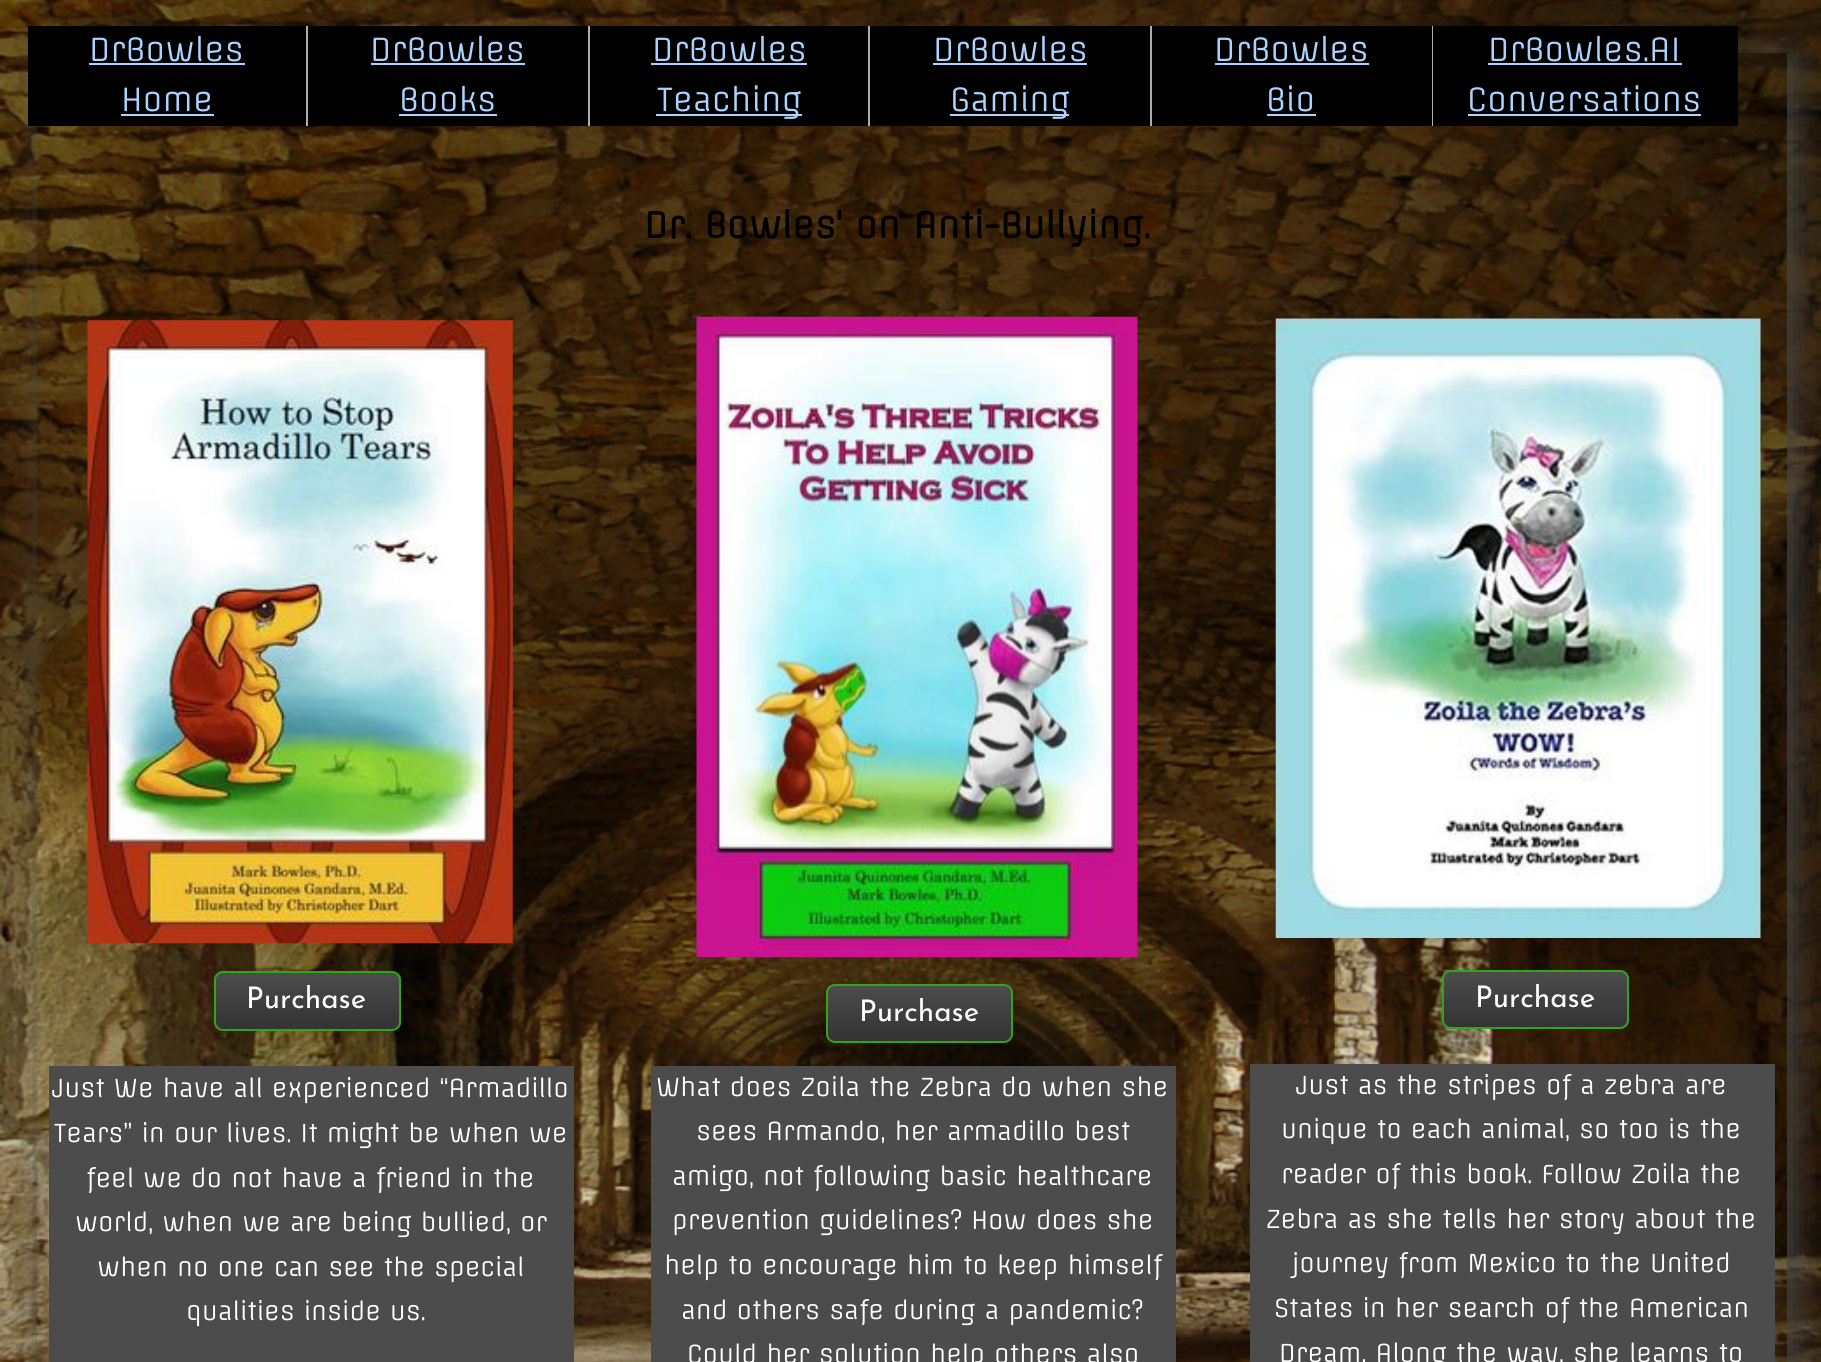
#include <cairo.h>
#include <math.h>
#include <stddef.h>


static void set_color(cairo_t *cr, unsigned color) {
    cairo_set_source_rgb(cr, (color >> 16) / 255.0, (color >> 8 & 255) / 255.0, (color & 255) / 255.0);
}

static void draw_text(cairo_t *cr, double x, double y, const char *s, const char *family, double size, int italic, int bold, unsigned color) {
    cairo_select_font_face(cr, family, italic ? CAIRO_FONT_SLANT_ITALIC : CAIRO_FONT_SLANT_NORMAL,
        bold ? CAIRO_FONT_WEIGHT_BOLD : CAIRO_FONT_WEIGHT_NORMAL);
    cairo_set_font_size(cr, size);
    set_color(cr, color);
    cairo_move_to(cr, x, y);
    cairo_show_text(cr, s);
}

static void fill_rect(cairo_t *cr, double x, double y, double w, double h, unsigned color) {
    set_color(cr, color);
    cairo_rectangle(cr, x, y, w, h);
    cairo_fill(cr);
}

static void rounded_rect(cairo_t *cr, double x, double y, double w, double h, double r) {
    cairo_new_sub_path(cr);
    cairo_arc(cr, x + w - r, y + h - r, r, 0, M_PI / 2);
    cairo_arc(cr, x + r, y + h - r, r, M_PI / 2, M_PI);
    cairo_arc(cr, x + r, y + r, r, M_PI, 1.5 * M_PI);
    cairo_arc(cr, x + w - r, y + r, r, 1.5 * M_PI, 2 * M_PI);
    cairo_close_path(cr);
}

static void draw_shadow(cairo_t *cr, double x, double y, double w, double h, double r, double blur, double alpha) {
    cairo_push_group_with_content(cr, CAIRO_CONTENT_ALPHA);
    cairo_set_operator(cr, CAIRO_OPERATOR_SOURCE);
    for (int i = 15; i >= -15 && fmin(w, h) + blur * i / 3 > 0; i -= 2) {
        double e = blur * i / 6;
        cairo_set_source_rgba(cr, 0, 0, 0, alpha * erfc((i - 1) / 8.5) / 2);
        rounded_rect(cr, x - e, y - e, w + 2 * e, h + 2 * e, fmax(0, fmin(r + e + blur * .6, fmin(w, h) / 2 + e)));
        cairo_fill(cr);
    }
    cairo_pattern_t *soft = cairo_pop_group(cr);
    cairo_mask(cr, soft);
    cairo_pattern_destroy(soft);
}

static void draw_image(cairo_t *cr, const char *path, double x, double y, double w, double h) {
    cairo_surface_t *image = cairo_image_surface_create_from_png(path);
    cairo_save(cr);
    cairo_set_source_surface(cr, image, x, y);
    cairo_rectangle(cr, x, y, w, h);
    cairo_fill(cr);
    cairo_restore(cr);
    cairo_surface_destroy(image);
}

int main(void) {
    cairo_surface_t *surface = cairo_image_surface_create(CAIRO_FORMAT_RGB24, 1821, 1362);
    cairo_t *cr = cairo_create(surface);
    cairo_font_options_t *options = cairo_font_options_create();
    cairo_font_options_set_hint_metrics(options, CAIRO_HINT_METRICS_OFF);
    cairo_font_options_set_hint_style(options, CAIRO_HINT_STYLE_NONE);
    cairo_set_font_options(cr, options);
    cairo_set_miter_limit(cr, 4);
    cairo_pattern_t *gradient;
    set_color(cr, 0xFFFFFF);
    cairo_paint(cr);
    draw_image(cr, "assets/img1.png", 0, 0, 1821, 1362);
    cairo_save(cr);
    cairo_set_fill_rule(cr, CAIRO_FILL_RULE_EVEN_ODD);
    cairo_new_path(cr);
    cairo_move_to(cr, 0, 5);
    cairo_line_to(cr, 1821, 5);
    cairo_line_to(cr, 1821, 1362);
    cairo_line_to(cr, 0, 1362);
    cairo_close_path(cr);
    cairo_move_to(cr, 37, 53);
    cairo_line_to(cr, 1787, 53);
    cairo_line_to(cr, 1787, 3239);
    cairo_line_to(cr, 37, 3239);
    cairo_close_path(cr);
    cairo_clip(cr);
    set_color(cr, 0x444444);
    draw_shadow(cr, 46, 56, 1750, 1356, 0, 16.5, 1);
    cairo_restore(cr);
    fill_rect(cr, 28, 26, 278, 100, 0x000000);
    fill_rect(cr, 306, 26, 2, 100, 0xAEAEAE);
    draw_text(cr, 89, 61, "DrBowles", "Offside", 31.5, 0, 0, 0xAAD4FF);
    fill_rect(cr, 89, 63, 156, 2, 0xAAD4FF);
    draw_text(cr, 121, 111, "Home", "Offside", 31.5, 0, 0, 0xAAD4FF);
    fill_rect(cr, 121, 114, 93, 2, 0xAAD4FF);
    fill_rect(cr, 308, 26, 280, 100, 0x000000);
    fill_rect(cr, 588, 26, 2, 100, 0xAEAEAE);
    draw_text(cr, 370, 61, "DrBowles", "Offside", 31.5, 0, 0, 0xAAD4FF);
    fill_rect(cr, 371, 63, 154, 2, 0xAAD4FF);
    draw_text(cr, 399, 111, "Books", "Offside", 31.5, 0, 0, 0xAAD4FF);
    fill_rect(cr, 399, 114, 98, 2, 0xAAD4FF);
    fill_rect(cr, 590, 26, 278, 100, 0x000000);
    fill_rect(cr, 868, 26, 2, 100, 0xAEAEAE);
    draw_text(cr, 652, 61, "DrBowles", "Offside", 31.5, 0, 0, 0xAAD4FF);
    fill_rect(cr, 651, 63, 156, 2, 0xAAD4FF);
    fill_rect(cr, 656, 114, 146, 2, 0xAAD4FF);
    draw_text(cr, 657, 111, "Teaching", "Offside", 31.5, 0, 0, 0xAAD4FF);
    fill_rect(cr, 870, 26, 280, 100, 0x000000);
    fill_rect(cr, 1150, 26, 2, 100, 0xAEAEAE);
    draw_text(cr, 933, 61, "DrBowles", "Offside", 31.5, 0, 0, 0xAAD4FF);
    fill_rect(cr, 933, 63, 154, 2, 0xAAD4FF);
    fill_rect(cr, 950, 114, 119, 2, 0xAAD4FF);
    draw_text(cr, 950, 111, "Gaming", "Offside", 31.5, 0, 0, 0xAAD4FF);
    fill_rect(cr, 1152, 26, 280, 100, 0x000000);
    fill_rect(cr, 1432, 26, 1, 100, 0xAEAEAE);
    draw_text(cr, 1214, 61, "DrBowles", "Offside", 31.5, 0, 0, 0xAAD4FF);
    fill_rect(cr, 1215, 63, 154, 2, 0xAAD4FF);
    draw_text(cr, 1266, 111, "Bio", "Offside", 31.5, 0, 0, 0xAAD4FF);
    fill_rect(cr, 1267, 114, 49, 2, 0xAAD4FF);
    fill_rect(cr, 1433, 26, 305, 100, 0x000000);
    draw_text(cr, 1488, 61, "DrBowles.AI", "Offside", 31.5, 0, 0, 0xAAD4FF);
    fill_rect(cr, 1488, 63, 194, 2, 0xAAD4FF);
    draw_text(cr, 1467, 111, "Conversations", "Offside", 31.5, 0, 0, 0xAAD4FF);
    fill_rect(cr, 1468, 114, 233, 2, 0xAAD4FF);
    draw_text(cr, 644, 238, "Dr. Bowles' on Anti-Bullying.", "Offside", 35, 0, 1, 0x000000);
    draw_image(cr, "assets/img2.png", 87, 320, 426, 624);
    draw_image(cr, "assets/img3.png", 696, 316, 442, 642);
    draw_image(cr, "assets/img4.png", 1275, 318, 486, 620);
    cairo_save(cr);
    rounded_rect(cr, 214, 971, 187, 60, 9);
    cairo_clip(cr);
    gradient = cairo_pattern_create_linear(307, 973, 307, 1029);
    cairo_pattern_add_color_stop_rgba(gradient, 0, 0.298, 0.298, 0.298, 1);
    cairo_pattern_add_color_stop_rgba(gradient, 1, 0.2, 0.2, 0.2, 1);
    cairo_set_source(cr, gradient);
    cairo_pattern_destroy(gradient);
    cairo_rectangle(cr, 214, 973, 187, 56);
    cairo_fill(cr);
    cairo_restore(cr);
    rounded_rect(cr, 215, 972, 185, 58, 8);
    set_color(cr, 0x30A612);
    cairo_stroke(cr);
    draw_text(cr, 246, 1008, "Purchase", "Josefin Sans Thin", 29.75, 0, 0, 0xFFFFFF);
    cairo_save(cr);
    rounded_rect(cr, 826, 984, 187, 59, 9);
    cairo_clip(cr);
    gradient = cairo_pattern_create_linear(920, 985, 920, 1041);
    cairo_pattern_add_color_stop_rgba(gradient, 0, 0.298, 0.298, 0.298, 1);
    cairo_pattern_add_color_stop_rgba(gradient, 1, 0.2, 0.2, 0.2, 1);
    cairo_set_source(cr, gradient);
    cairo_pattern_destroy(gradient);
    cairo_rectangle(cr, 826, 985, 187, 56);
    cairo_fill(cr);
    cairo_restore(cr);
    rounded_rect(cr, 827, 985, 185, 57, 8);
    set_color(cr, 0x30A612);
    cairo_stroke(cr);
    draw_text(cr, 859, 1021, "Purchase", "Josefin Sans Thin", 29.75, 0, 0, 0xFFFFFF);
    cairo_save(cr);
    rounded_rect(cr, 1442, 970, 187, 59, 9);
    cairo_clip(cr);
    gradient = cairo_pattern_create_linear(1536, 971, 1536, 1027);
    cairo_pattern_add_color_stop_rgba(gradient, 0, 0.298, 0.298, 0.298, 1);
    cairo_pattern_add_color_stop_rgba(gradient, 1, 0.2, 0.2, 0.2, 1);
    cairo_set_source(cr, gradient);
    cairo_pattern_destroy(gradient);
    cairo_rectangle(cr, 1442, 971, 187, 56);
    cairo_fill(cr);
    cairo_restore(cr);
    rounded_rect(cr, 1443, 971, 185, 57, 8);
    set_color(cr, 0x30A612);
    cairo_stroke(cr);
    draw_text(cr, 1475, 1007, "Purchase", "Josefin Sans Thin", 29.75, 0, 0, 0xFFFFFF);
    fill_rect(cr, 49, 1066, 525, 296, 0x4C4C4C);
    draw_text(cr, 52, 1097, "Just We have all experienced “Armadillo", "Offside", 24.5, 0, 0, 0xFFFFFF);
    draw_text(cr, 54, 1142, "Tears” in our lives. It might be when we", "Offside", 24.5, 0, 0, 0xFFFFFF);
    draw_text(cr, 86, 1187, "feel we do not have a friend in the", "Offside", 24.5, 0, 0, 0xFFFFFF);
    draw_text(cr, 75, 1231, "world, when we are being bullied, or", "Offside", 24.5, 0, 0, 0xFFFFFF);
    draw_text(cr, 97, 1276, "when no one can see the special", "Offside", 24.5, 0, 0, 0xFFFFFF);
    draw_text(cr, 186, 1320, "qualities inside us.", "Offside", 24.5, 0, 0, 0xFFFFFF);
    fill_rect(cr, 651, 1066, 525, 296, 0x4C4C4C);
    draw_text(cr, 656, 1096, "What does Zoila the Zebra do when she", "Offside", 24.5, 0, 0, 0xFFFFFF);
    draw_text(cr, 696, 1140, "sees Armando, her armadillo best", "Offside", 24.5, 0, 0, 0xFFFFFF);
    draw_text(cr, 672, 1185, "amigo, not following basic healthcare", "Offside", 24.5, 0, 0, 0xFFFFFF);
    draw_text(cr, 672, 1229, "prevention guidelines? How does she", "Offside", 24.5, 0, 0, 0xFFFFFF);
    draw_text(cr, 664, 1274, "help to encourage him to keep himself", "Offside", 24.5, 0, 0, 0xFFFFFF);
    draw_text(cr, 681, 1319, "and others safe during a pandemic?", "Offside", 24.5, 0, 0, 0xFFFFFF);
    draw_text(cr, 687, 1363, "Could her solution help others also", "Offside", 24.5, 0, 0, 0xFFFFFF);
    fill_rect(cr, 1250, 1064, 525, 298, 0x4C4C4C);
    draw_text(cr, 1296, 1094, "Just as the stripes of a zebra are", "Offside", 24.5, 0, 0, 0xFFFFFF);
    draw_text(cr, 1281, 1138, "unique to each animal, so too is the", "Offside", 24.5, 0, 0, 0xFFFFFF);
    draw_text(cr, 1281, 1183, "reader of this book. Follow Zoila the", "Offside", 24.5, 0, 0, 0xFFFFFF);
    draw_text(cr, 1266, 1228, "Zebra as she tells her story about the", "Offside", 24.5, 0, 0, 0xFFFFFF);
    draw_text(cr, 1292, 1272, "journey from Mexico to the United", "Offside", 24.5, 0, 0, 0xFFFFFF);
    draw_text(cr, 1274, 1317, "States in her search of the American", "Offside", 24.5, 0, 0, 0xFFFFFF);
    draw_text(cr, 1279, 1362, "Dream. Along the way, she learns to", "Offside", 24.5, 0, 0, 0xFFFFFF);
    cairo_surface_write_to_png(surface, "output.png");
    cairo_font_options_destroy(options);
    cairo_destroy(cr);
    cairo_surface_destroy(surface);
    return 0;
}
